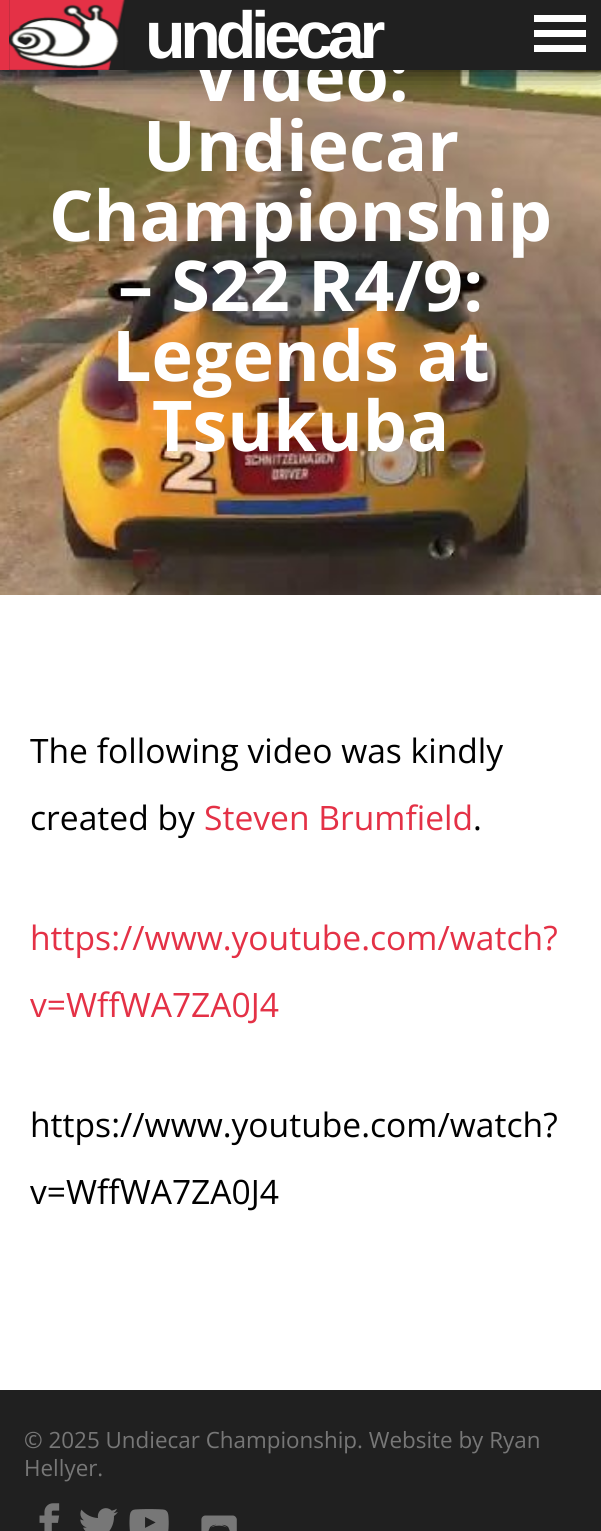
#include <cairo.h>
#include <math.h>
#include <stddef.h>


static void set_color(cairo_t *cr, unsigned color) {
    cairo_set_source_rgb(cr, (color >> 16) / 255.0, (color >> 8 & 255) / 255.0, (color & 255) / 255.0);
}

static void draw_text(cairo_t *cr, double x, double y, const char *s, const char *family, double size, int italic, int bold, unsigned color) {
    cairo_select_font_face(cr, family, italic ? CAIRO_FONT_SLANT_ITALIC : CAIRO_FONT_SLANT_NORMAL,
        bold ? CAIRO_FONT_WEIGHT_BOLD : CAIRO_FONT_WEIGHT_NORMAL);
    cairo_set_font_size(cr, size);
    set_color(cr, color);
    cairo_move_to(cr, x, y);
    cairo_show_text(cr, s);
}

static void draw_spaced(cairo_t *cr, double x, double y, const char *s, double letter, double word) {
    cairo_move_to(cr, x, y);
    while (*s) {
        char ch[5] = {0};
        int n = 0;
        do ch[n++] = *s++; while ((*s & 0xC0) == 0x80);
        cairo_show_text(cr, ch);
        cairo_rel_move_to(cr, letter + word * (*ch == ' '), 0);
    }
}

static void fill_rect(cairo_t *cr, double x, double y, double w, double h, unsigned color) {
    set_color(cr, color);
    cairo_rectangle(cr, x, y, w, h);
    cairo_fill(cr);
}

static void rounded_rect(cairo_t *cr, double x, double y, double w, double h, double r) {
    cairo_new_sub_path(cr);
    cairo_arc(cr, x + w - r, y + h - r, r, 0, M_PI / 2);
    cairo_arc(cr, x + r, y + h - r, r, M_PI / 2, M_PI);
    cairo_arc(cr, x + r, y + r, r, M_PI, 1.5 * M_PI);
    cairo_arc(cr, x + w - r, y + r, r, 1.5 * M_PI, 2 * M_PI);
    cairo_close_path(cr);
}

static void draw_shadow(cairo_t *cr, double x, double y, double w, double h, double r, double blur, double alpha) {
    cairo_push_group_with_content(cr, CAIRO_CONTENT_ALPHA);
    cairo_set_operator(cr, CAIRO_OPERATOR_SOURCE);
    for (int i = 15; i >= -15 && fmin(w, h) + blur * i / 3 > 0; i -= 2) {
        double e = blur * i / 6;
        cairo_set_source_rgba(cr, 0, 0, 0, alpha * erfc((i - 1) / 8.5) / 2);
        rounded_rect(cr, x - e, y - e, w + 2 * e, h + 2 * e, fmax(0, fmin(r + e + blur * .6, fmin(w, h) / 2 + e)));
        cairo_fill(cr);
    }
    cairo_pattern_t *soft = cairo_pop_group(cr);
    cairo_mask(cr, soft);
    cairo_pattern_destroy(soft);
}

static void draw_image(cairo_t *cr, const char *path, double x, double y, double w, double h) {
    cairo_surface_t *image = cairo_image_surface_create_from_png(path);
    cairo_save(cr);
    cairo_set_source_surface(cr, image, x, y);
    cairo_rectangle(cr, x, y, w, h);
    cairo_fill(cr);
    cairo_restore(cr);
    cairo_surface_destroy(image);
}

int main(void) {
    cairo_surface_t *surface = cairo_image_surface_create(CAIRO_FORMAT_RGB24, 601, 1531);
    cairo_t *cr = cairo_create(surface);
    cairo_font_options_t *options = cairo_font_options_create();
    cairo_font_options_set_hint_metrics(options, CAIRO_HINT_METRICS_OFF);
    cairo_font_options_set_hint_style(options, CAIRO_HINT_STYLE_NONE);
    cairo_set_font_options(cr, options);
    cairo_set_miter_limit(cr, 4);
    set_color(cr, 0xFFFFFF);
    cairo_paint(cr);
    draw_image(cr, "assets/img2.png", 0, 70, 601, 525);
    set_color(cr, 0x000000);
    draw_shadow(cr, 0, 0, 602, 70, 0, 13, 0.9);
    draw_text(cr, 193, 101, "Video:", "Open Sans", 70, 0, 1, 0xFFFFFF);
    fill_rect(cr, 9, 0, 592, 70, 0x202020);
    draw_image(cr, "assets/img1.png", 9, 0, 116, 70);
    fill_rect(cr, 0, 0, 9, 70, 0xE43146);
    cairo_select_font_face(cr, "Liberation Sans", CAIRO_FONT_SLANT_NORMAL, CAIRO_FONT_WEIGHT_BOLD);
    cairo_set_font_size(cr, 66.5);
    set_color(cr, 0xFFFFFF);
    draw_spaced(cr, 145, 58, "undiecar", -5.25, 0);
    cairo_new_path(cr);
    cairo_move_to(cr, 534, 15);
    cairo_line_to(cr, 586, 15);
    cairo_line_to(cr, 586, 22);
    cairo_line_to(cr, 534, 22);
    cairo_close_path(cr);
    cairo_move_to(cr, 534, 30);
    cairo_line_to(cr, 586, 30);
    cairo_line_to(cr, 586, 37);
    cairo_line_to(cr, 534, 37);
    cairo_close_path(cr);
    cairo_move_to(cr, 534, 45);
    cairo_line_to(cr, 586, 45);
    cairo_line_to(cr, 586, 52);
    cairo_line_to(cr, 534, 52);
    cairo_close_path(cr);
    cairo_fill(cr);
    draw_text(cr, 143, 171, "Undiecar", "Open Sans", 70, 0, 1, 0xFFFFFF);
    draw_text(cr, 49, 241, "Championship", "Open Sans", 70, 0, 1, 0xFFFFFF);
    draw_text(cr, 118, 311, "– S22 R4/9:", "Open Sans", 70, 0, 1, 0xFFFFFF);
    draw_text(cr, 112, 381, "Legends at", "Open Sans", 70, 0, 1, 0xFFFFFF);
    draw_text(cr, 152, 451, "Tsukuba", "Open Sans", 70, 0, 1, 0xFFFFFF);
    draw_text(cr, 30, 763, "The following video was kindly", "Open Sans", 33.6, 0, 0, 0x000000);
    draw_text(cr, 30, 830, "created by", "Open Sans", 33.6, 0, 0, 0x000000);
    draw_text(cr, 204, 830, "Steven Brumfield", "Open Sans", 33.6, 0, 0, 0xE43146);
    draw_text(cr, 473, 830, ".", "Open Sans", 33.6, 0, 0, 0x000000);
    draw_text(cr, 30, 950, "https://www.youtube.com/watch?", "Open Sans", 33.6, 0, 0, 0xE43146);
    draw_text(cr, 30, 1017, "v=WffWA7ZA0J4", "Open Sans", 33.6, 0, 0, 0xE43146);
    draw_text(cr, 30, 1137, "https://www.youtube.com/watch?", "Open Sans", 33.6, 0, 0, 0x000000);
    draw_text(cr, 30, 1204, "v=WffWA7ZA0J4", "Open Sans", 33.6, 0, 0, 0x000000);
    fill_rect(cr, 0, 1390, 601, 141, 0x202020);
    draw_text(cr, 24, 1448, "© 2025 Undiecar Championship. Website by Ryan", "Open Sans", 22.4, 0, 0, 0x777777);
    draw_text(cr, 24, 1476, "Hellyer.", "Open Sans", 22.4, 0, 0, 0x777777);
    draw_image(cr, "assets/img3.png", 39, 1503, 21, 28);
    draw_image(cr, "assets/img4.png", 80, 1508, 38, 23);
    draw_image(cr, "assets/img5.png", 129, 1509, 40, 22);
    draw_image(cr, "assets/img6.png", 201, 1515, 36, 16);
    cairo_surface_write_to_png(surface, "output.png");
    cairo_font_options_destroy(options);
    cairo_destroy(cr);
    cairo_surface_destroy(surface);
    return 0;
}
